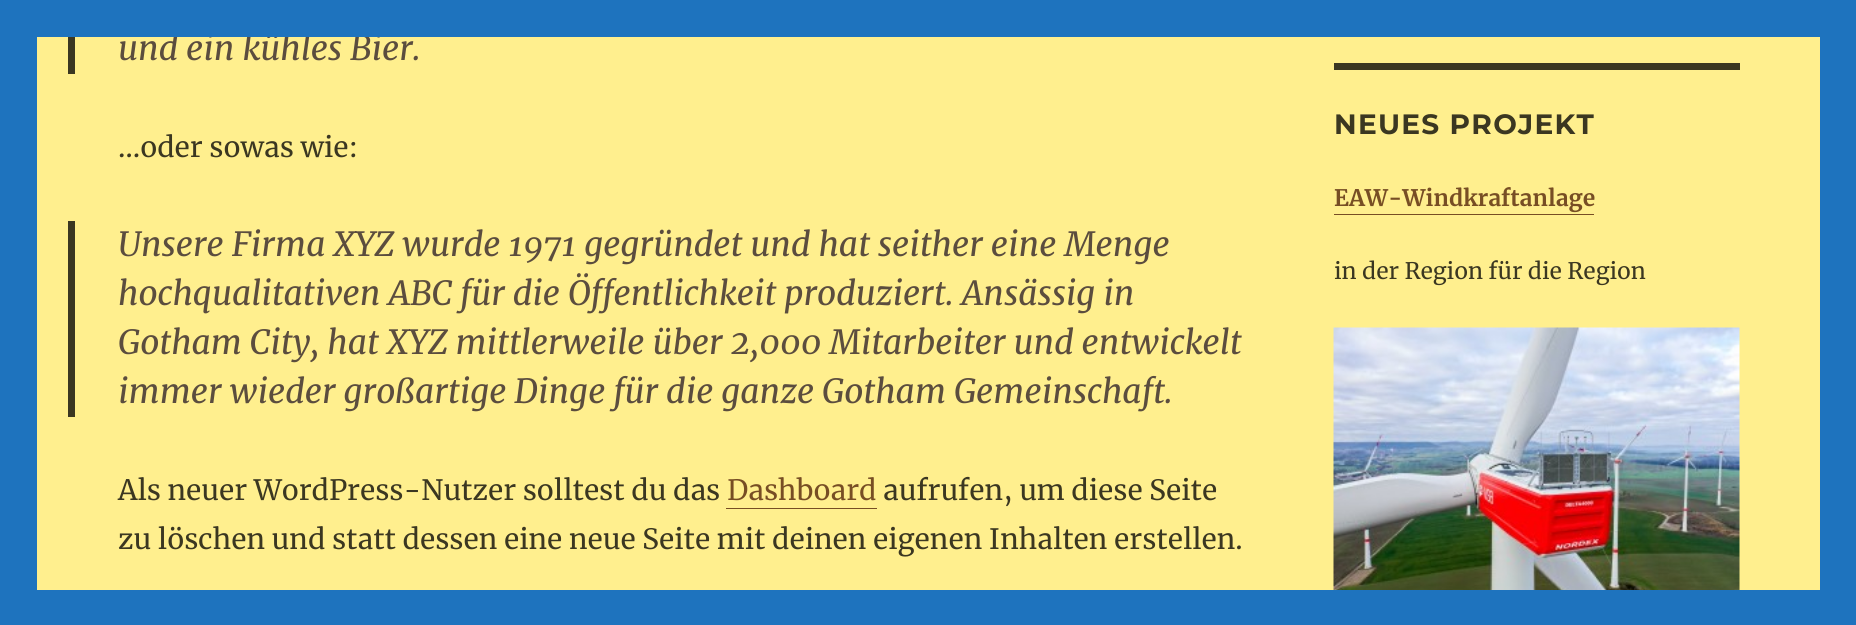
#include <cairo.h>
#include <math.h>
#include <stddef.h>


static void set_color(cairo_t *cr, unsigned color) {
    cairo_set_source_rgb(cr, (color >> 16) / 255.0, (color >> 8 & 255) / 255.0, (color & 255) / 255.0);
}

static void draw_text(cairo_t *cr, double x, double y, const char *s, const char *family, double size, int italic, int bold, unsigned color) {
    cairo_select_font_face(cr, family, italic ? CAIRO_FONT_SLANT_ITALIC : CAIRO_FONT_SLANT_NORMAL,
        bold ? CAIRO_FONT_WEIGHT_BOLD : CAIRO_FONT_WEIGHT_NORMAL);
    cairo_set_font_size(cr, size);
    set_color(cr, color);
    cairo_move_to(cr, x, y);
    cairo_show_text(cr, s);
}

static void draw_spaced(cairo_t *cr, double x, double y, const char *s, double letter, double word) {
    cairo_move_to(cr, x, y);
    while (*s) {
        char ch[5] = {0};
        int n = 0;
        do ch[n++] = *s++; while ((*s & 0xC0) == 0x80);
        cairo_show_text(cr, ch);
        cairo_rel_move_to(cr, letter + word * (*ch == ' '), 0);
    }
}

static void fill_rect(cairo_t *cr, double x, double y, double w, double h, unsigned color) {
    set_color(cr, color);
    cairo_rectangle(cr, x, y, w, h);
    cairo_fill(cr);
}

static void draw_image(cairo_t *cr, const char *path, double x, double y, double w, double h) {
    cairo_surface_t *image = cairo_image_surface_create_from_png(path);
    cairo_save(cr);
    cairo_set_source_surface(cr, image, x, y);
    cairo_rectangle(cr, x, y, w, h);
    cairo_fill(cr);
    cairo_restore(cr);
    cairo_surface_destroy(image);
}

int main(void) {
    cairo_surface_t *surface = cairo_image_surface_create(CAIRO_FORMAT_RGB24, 1856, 625);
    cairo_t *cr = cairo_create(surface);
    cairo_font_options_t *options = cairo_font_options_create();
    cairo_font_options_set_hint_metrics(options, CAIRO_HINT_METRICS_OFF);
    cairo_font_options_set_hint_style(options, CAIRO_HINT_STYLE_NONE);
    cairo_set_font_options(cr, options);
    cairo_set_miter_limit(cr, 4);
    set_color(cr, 0x1E73BE);
    cairo_paint(cr);
    fill_rect(cr, 37, 37, 1783, 553, 0xFFEF8E);
    fill_rect(cr, 68, 37, 7, 37, 0x3B3721);
    draw_text(cr, 118, 60, "und ein kühles Bier.", "Merriweather", 33.25, 1, 0, 0x5B4D3E);
    draw_text(cr, 118, 157, "…oder sowas wie:", "Merriweather", 28, 0, 0, 0x3B3721);
    fill_rect(cr, 68, 221, 7, 196, 0x3B3721);
    draw_text(cr, 118, 256, "Unsere Firma XYZ wurde 1971 gegründet und hat seither eine Menge", "Merriweather", 33.25, 1, 0, 0x5B4D3E);
    draw_text(cr, 118, 305, "hochqualitativen ABC für die Öffentlichkeit produziert. Ansässig in", "Merriweather", 33.25, 1, 0, 0x5B4D3E);
    draw_text(cr, 118, 354, "Gotham City, hat XYZ mittlerweile über 2,000 Mitarbeiter und entwickelt", "Merriweather", 33.25, 1, 0, 0x5B4D3E);
    draw_text(cr, 118, 403, "immer wieder großartige Dinge für die ganze Gotham Gemeinschaft.", "Merriweather", 33.25, 1, 0, 0x5B4D3E);
    draw_text(cr, 118, 500, "Als neuer WordPress-Nutzer solltest du das", "Merriweather", 28, 0, 0, 0x3B3721);
    draw_text(cr, 727, 500, "Dashboard", "Merriweather", 28, 0, 0, 0x774E24);
    cairo_new_path(cr);
    cairo_move_to(cr, 726, 474);
    cairo_line_to(cr, 726, 509);
    cairo_line_to(cr, 877, 509);
    cairo_line_to(cr, 877, 474);
    cairo_line_to(cr, 877, 508);
    cairo_line_to(cr, 726, 508);
    cairo_close_path(cr);
    cairo_fill(cr);
    draw_text(cr, 883, 500, "aufrufen, um diese Seite", "Merriweather", 28, 0, 0, 0x3B3721);
    draw_text(cr, 118, 549, "zu löschen und statt dessen eine neue Seite mit deinen eigenen Inhalten erstellen.", "Merriweather", 28, 0, 0, 0x3B3721);
    fill_rect(cr, 1334, 63, 406, 7, 0x3B3721);
    cairo_select_font_face(cr, "Montserrat Thin", CAIRO_FONT_SLANT_NORMAL, CAIRO_FONT_WEIGHT_NORMAL);
    draw_spaced(cr, 1334, 134, "NEUES PROJEKT", 1.25, 0);
    draw_text(cr, 1334, 206, "EAW-Windkraftanlage", "Merriweather", 22.75, 0, 1, 0x774E24);
    fill_rect(cr, 1334, 214, 260, 1, 0x774E24);
    draw_text(cr, 1334, 279, "in der Region für die Region", "Merriweather", 22.75, 0, 0, 0x3B3721);
    draw_image(cr, "assets/img1.png", 1333, 327, 407, 263);
    fill_rect(cr, 171, 33, 210, 4, 0x1E73BE);
    cairo_surface_write_to_png(surface, "output.png");
    cairo_font_options_destroy(options);
    cairo_destroy(cr);
    cairo_surface_destroy(surface);
    return 0;
}
